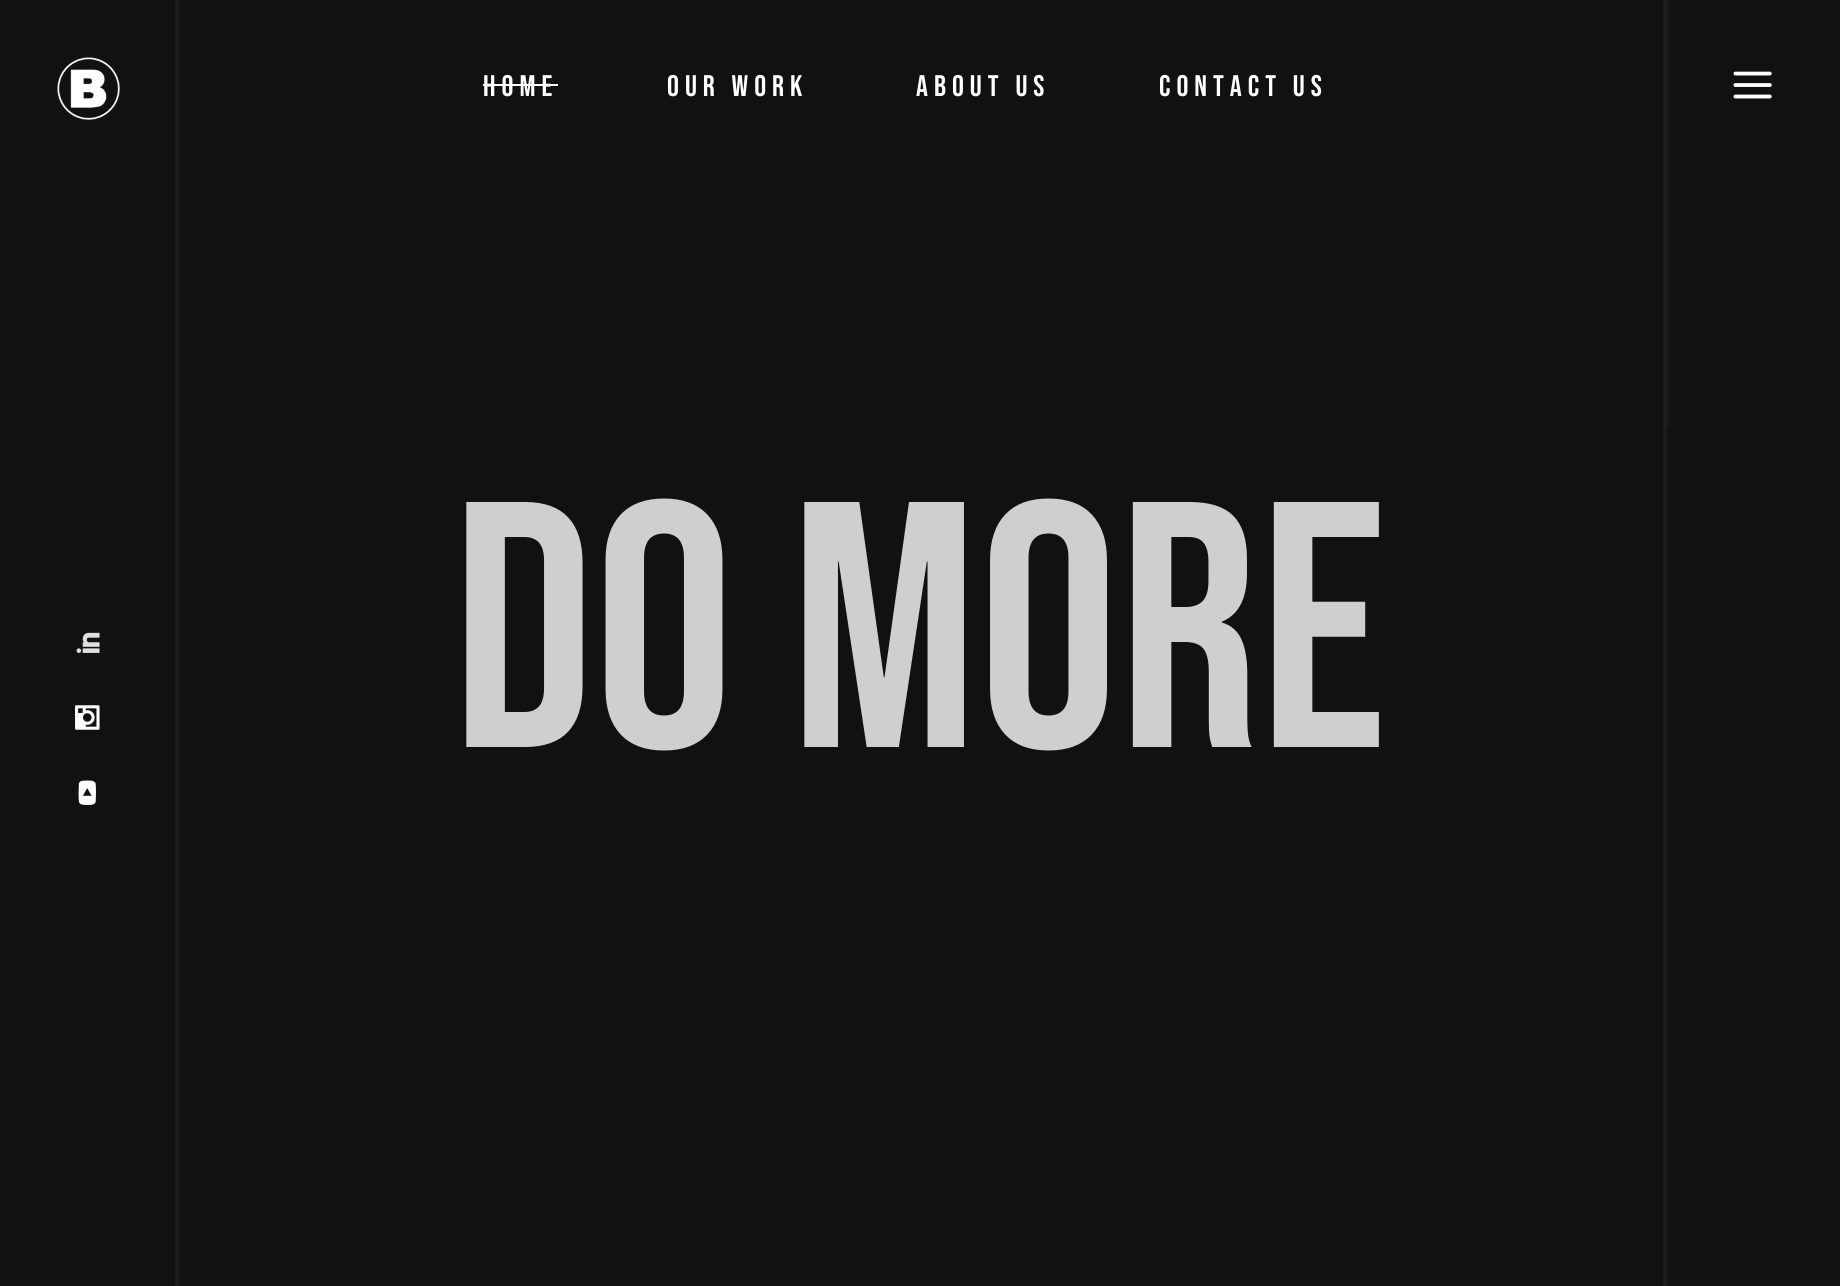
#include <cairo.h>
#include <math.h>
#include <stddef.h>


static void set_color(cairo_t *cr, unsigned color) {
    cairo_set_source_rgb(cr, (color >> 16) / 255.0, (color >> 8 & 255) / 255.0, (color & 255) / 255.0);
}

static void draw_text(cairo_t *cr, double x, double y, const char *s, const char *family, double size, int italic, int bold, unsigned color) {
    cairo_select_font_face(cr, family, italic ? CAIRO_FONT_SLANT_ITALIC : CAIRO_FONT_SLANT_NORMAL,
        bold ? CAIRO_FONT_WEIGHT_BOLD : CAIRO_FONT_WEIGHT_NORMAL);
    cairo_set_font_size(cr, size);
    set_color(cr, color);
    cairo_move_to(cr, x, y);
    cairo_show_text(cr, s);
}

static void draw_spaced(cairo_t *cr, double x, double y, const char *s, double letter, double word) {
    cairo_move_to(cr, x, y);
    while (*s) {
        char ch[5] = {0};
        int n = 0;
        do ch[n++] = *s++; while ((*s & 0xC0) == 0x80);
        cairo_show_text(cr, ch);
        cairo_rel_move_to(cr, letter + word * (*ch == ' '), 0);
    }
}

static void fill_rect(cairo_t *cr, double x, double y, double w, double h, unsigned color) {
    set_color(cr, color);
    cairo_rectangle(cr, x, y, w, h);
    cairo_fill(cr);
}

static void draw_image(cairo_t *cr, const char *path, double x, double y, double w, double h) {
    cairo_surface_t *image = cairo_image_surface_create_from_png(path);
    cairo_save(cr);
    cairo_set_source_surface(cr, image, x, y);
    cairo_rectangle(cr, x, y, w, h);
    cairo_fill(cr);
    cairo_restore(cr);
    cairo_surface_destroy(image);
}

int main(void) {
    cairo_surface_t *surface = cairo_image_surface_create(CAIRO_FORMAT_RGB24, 1840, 1286);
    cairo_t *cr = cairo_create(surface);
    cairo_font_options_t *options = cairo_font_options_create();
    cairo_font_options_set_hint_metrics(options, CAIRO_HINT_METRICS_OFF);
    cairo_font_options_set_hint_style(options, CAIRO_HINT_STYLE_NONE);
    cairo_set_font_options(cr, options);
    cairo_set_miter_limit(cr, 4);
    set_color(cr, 0x111111);
    cairo_paint(cr);
    fill_rect(cr, 175, 0, 4, 1286, 0x1D1D1D);
    draw_image(cr, "assets/img1.png", 57, 57, 63, 63);
    cairo_select_font_face(cr, "Bebas Neue", CAIRO_FONT_SLANT_NORMAL, CAIRO_FONT_WEIGHT_NORMAL);
    cairo_set_font_size(cr, 29.75);
    set_color(cr, 0xFFFFFF);
    draw_spaced(cr, 483, 96, "HOME", 6, 0);
    fill_rect(cr, 483, 84, 75, 2, 0xFFFFFF);
    draw_spaced(cr, 667, 96, "OUR WORK", 6, 0);
    draw_spaced(cr, 916, 96, "ABOUT US", 6, 0);
    draw_spaced(cr, 1159, 96, "CONTACT US", 6, 0);
    draw_image(cr, "assets/img2.png", 1733, 71, 39, 28);
    fill_rect(cr, 1663, 0, 4, 1286, 0x1D1D1D);
    fill_rect(cr, 1667, 0, 3, 429, 0x151515);
    fill_rect(cr, 1666, 0, 1, 429, 0x212121);
    draw_image(cr, "assets/img3.png", 76, 632, 24, 21);
    draw_image(cr, "assets/img4.png", 75, 705, 25, 25);
    draw_image(cr, "assets/img5.png", 78, 780, 18, 25);
    draw_text(cr, 452, 747, "Do More", "Bebas Neue", 350, 0, 0, 0xCFCFCF);
    cairo_surface_write_to_png(surface, "output.png");
    cairo_font_options_destroy(options);
    cairo_destroy(cr);
    cairo_surface_destroy(surface);
    return 0;
}
